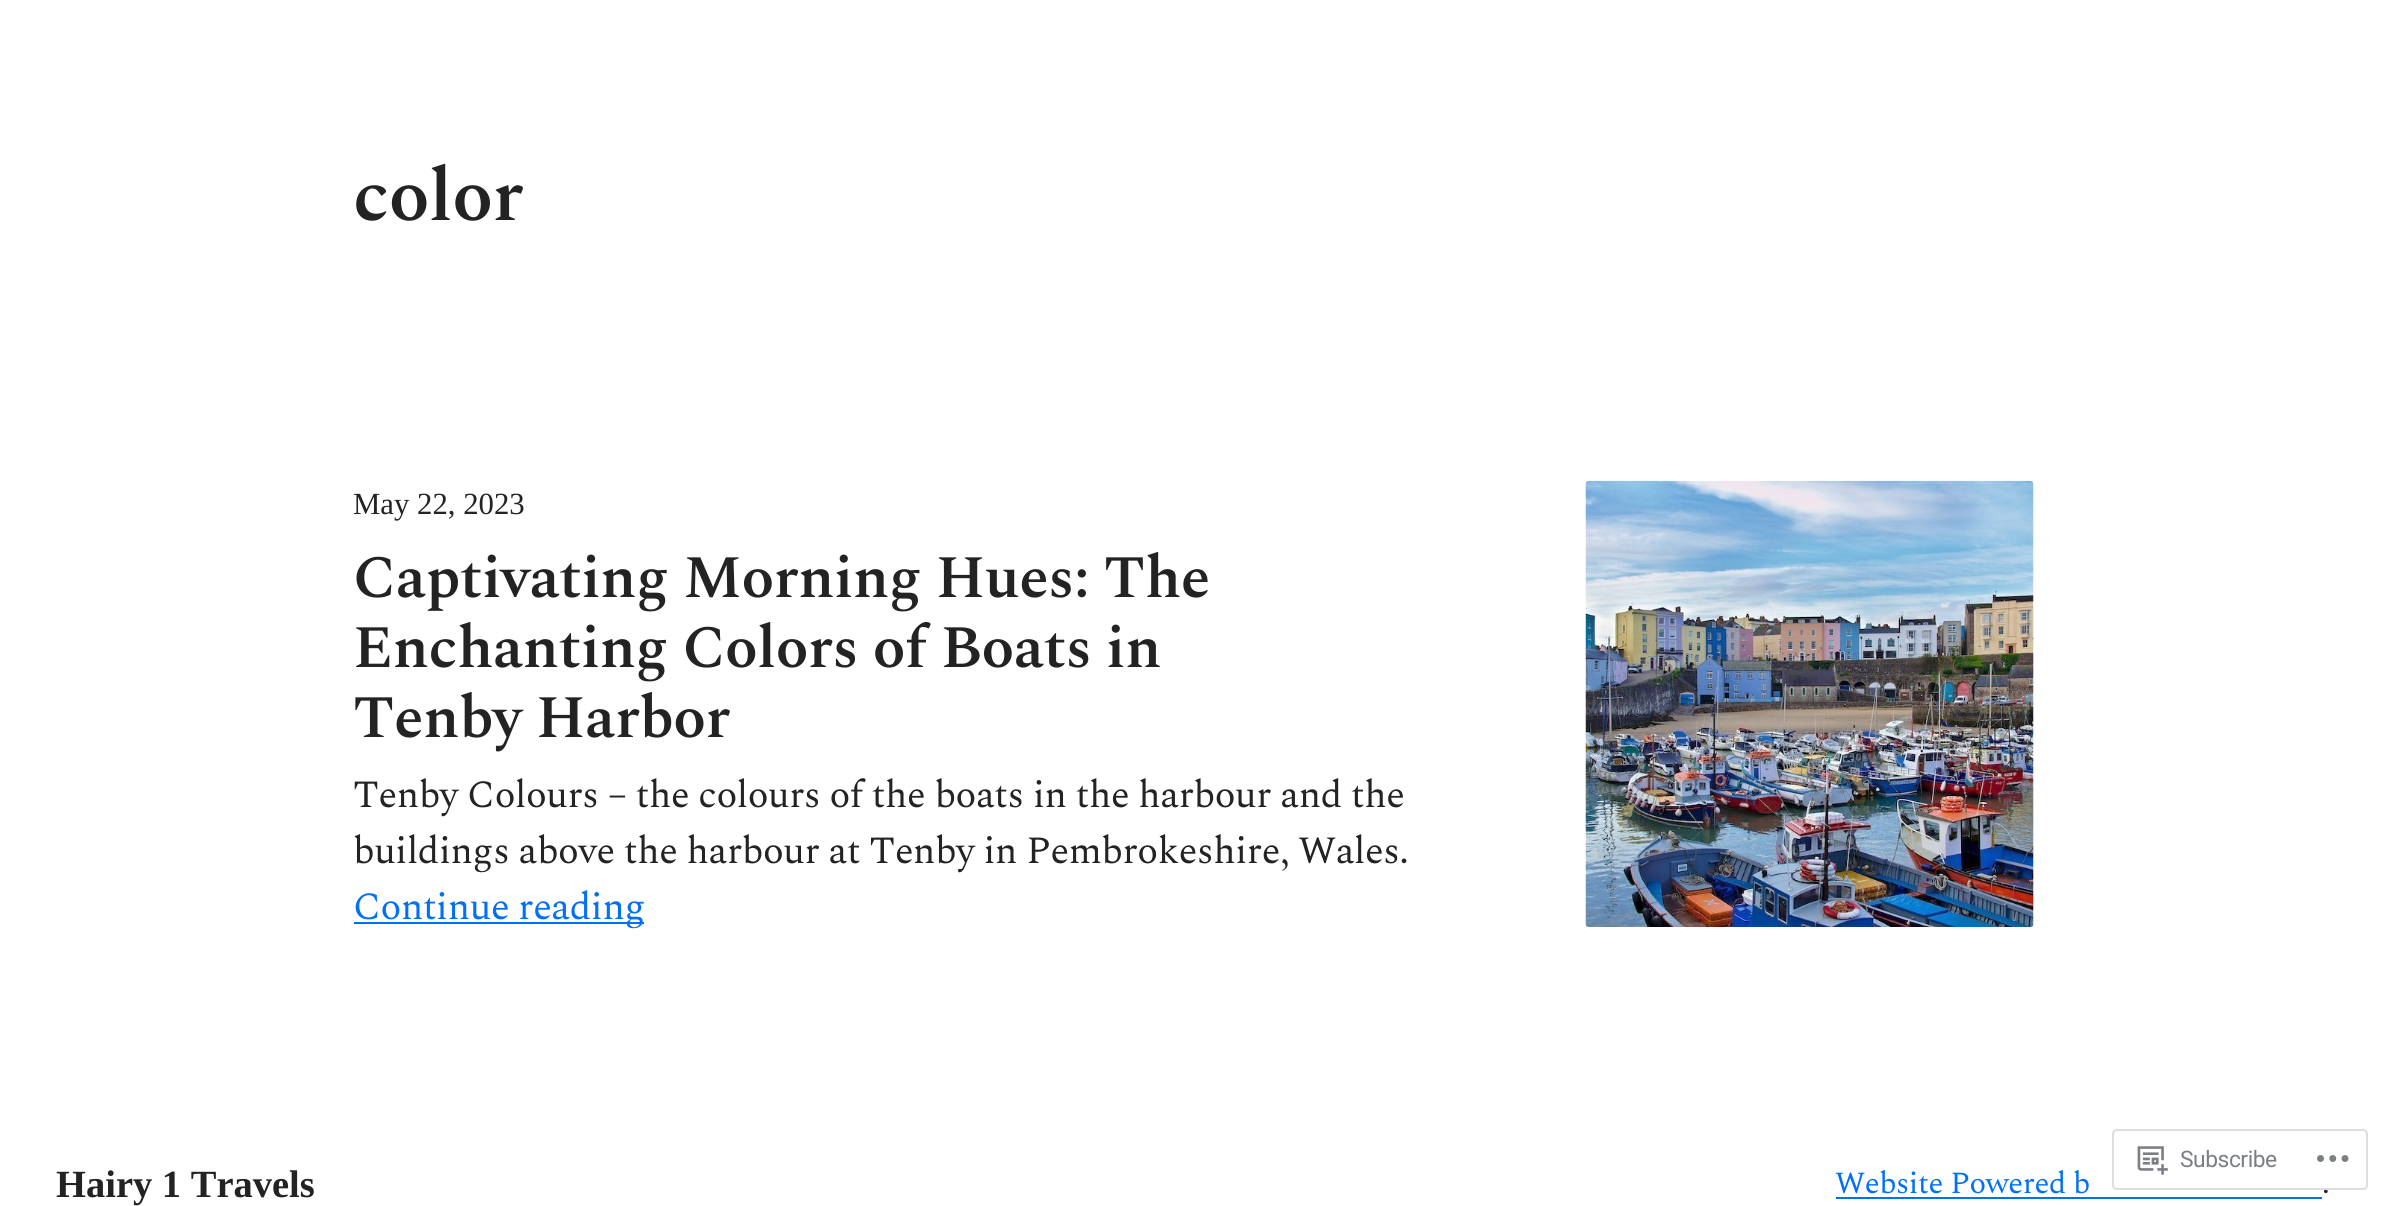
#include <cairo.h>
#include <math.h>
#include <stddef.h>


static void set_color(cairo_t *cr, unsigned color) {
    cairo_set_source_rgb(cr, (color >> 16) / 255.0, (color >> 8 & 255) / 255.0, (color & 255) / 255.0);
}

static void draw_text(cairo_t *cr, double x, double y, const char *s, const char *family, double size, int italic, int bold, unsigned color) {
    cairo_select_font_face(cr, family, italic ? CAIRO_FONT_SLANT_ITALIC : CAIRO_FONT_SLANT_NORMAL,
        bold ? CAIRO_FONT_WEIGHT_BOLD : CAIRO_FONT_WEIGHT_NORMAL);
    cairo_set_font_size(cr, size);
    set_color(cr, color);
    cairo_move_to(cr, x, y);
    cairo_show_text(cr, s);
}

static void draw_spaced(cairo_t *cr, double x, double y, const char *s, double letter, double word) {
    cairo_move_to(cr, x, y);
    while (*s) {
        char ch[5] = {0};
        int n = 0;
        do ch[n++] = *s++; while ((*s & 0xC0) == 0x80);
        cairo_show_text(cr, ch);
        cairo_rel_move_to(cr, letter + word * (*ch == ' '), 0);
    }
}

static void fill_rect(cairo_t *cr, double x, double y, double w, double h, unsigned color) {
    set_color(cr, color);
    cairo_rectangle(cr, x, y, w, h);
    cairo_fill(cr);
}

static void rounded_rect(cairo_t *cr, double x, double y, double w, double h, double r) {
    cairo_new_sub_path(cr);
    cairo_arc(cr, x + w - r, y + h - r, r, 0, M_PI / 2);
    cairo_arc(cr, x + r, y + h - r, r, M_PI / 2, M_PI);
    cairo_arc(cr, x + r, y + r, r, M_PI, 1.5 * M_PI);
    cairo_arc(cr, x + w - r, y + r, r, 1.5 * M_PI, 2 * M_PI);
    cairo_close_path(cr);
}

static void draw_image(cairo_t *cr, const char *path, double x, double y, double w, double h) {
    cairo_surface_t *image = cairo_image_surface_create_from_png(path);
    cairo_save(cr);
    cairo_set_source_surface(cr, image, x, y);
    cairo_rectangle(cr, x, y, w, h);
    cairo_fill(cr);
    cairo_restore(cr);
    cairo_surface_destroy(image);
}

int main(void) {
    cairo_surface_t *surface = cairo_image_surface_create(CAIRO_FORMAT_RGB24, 2385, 1206);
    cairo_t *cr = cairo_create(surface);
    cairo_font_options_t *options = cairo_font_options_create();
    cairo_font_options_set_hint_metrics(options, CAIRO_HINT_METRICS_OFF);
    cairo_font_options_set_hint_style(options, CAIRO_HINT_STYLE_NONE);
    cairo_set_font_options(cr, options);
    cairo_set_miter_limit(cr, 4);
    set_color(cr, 0xFFFFFF);
    cairo_paint(cr);
    cairo_select_font_face(cr, "Spectral SemiBold", CAIRO_FONT_SLANT_NORMAL, CAIRO_FONT_WEIGHT_NORMAL);
    cairo_set_font_size(cr, 75);
    set_color(cr, 0x232323);
    draw_spaced(cr, 353, 220, "color", -0.42, 0);
    draw_text(cr, 353, 514, "May 22, 2023", "Liberation Serif", 30.75, 0, 0, 0x232323);
    cairo_select_font_face(cr, "Spectral SemiBold", CAIRO_FONT_SLANT_NORMAL, CAIRO_FONT_WEIGHT_NORMAL);
    cairo_set_font_size(cr, 60.1);
    draw_spaced(cr, 353, 597, "Captivating Morning Hues: The", -0.42, 0);
    draw_spaced(cr, 353, 667, "Enchanting Colors of Boats in", -0.42, 0);
    draw_spaced(cr, 353, 737, "Tenby Harbor", -0.42, 0);
    cairo_select_font_face(cr, "Spectral", CAIRO_FONT_SLANT_NORMAL, CAIRO_FONT_WEIGHT_NORMAL);
    cairo_set_font_size(cr, 38.5);
    draw_spaced(cr, 353, 807, "Tenby Colours – the colours of the boats in the harbour and the", -0.42, 0);
    draw_spaced(cr, 353, 863, "buildings above the harbour at Tenby in Pembrokeshire, Wales.", -0.42, 0);
    fill_rect(cr, 354, 922, 290, 2, 0x0070F6);
    draw_spaced(cr, 353, 919, "Continue reading", -0.42, 0);
    draw_image(cr, "assets/img1.png", 1585, 480, 449, 447);
    draw_text(cr, 56, 1197, "Hairy 1 Travels", "Liberation Serif", 38.5, 0, 1, 0x232323);
    cairo_select_font_face(cr, "Spectral", CAIRO_FONT_SLANT_NORMAL, CAIRO_FONT_WEIGHT_NORMAL);
    cairo_set_font_size(cr, 30.75);
    set_color(cr, 0x0070F6);
    draw_spaced(cr, 1835, 1193, "Website Powered b", -0.42, 0);
    fill_rect(cr, 1836, 1197, 486, 2, 0x0070F6);
    set_color(cr, 0x232323);
    draw_spaced(cr, 2322, 1193, ".", -0.42, 0);
    cairo_set_source_rgba(cr, 1, 1, 1, 0.98);
    rounded_rect(cr, 2112, 1129, 256, 61, 5);
    cairo_fill(cr);
    rounded_rect(cr, 2113, 1130, 254, 59, 4);
    cairo_set_source_rgba(cr, 0.863, 0.863, 0.871, 0.98);
    cairo_stroke(cr);
    draw_image(cr, "assets/img2.png", 2137, 1146, 31, 29);
    cairo_select_font_face(cr, "Roboto", CAIRO_FONT_SLANT_NORMAL, CAIRO_FONT_WEIGHT_NORMAL);
    cairo_set_font_size(cr, 22.75);
    set_color(cr, 0x7B7F85);
    draw_spaced(cr, 2180, 1167, "Subscribe", -0.42, 0);
    draw_image(cr, "assets/img3.png", 2317, 1155, 32, 7);
    cairo_surface_write_to_png(surface, "output.png");
    cairo_font_options_destroy(options);
    cairo_destroy(cr);
    cairo_surface_destroy(surface);
    return 0;
}
